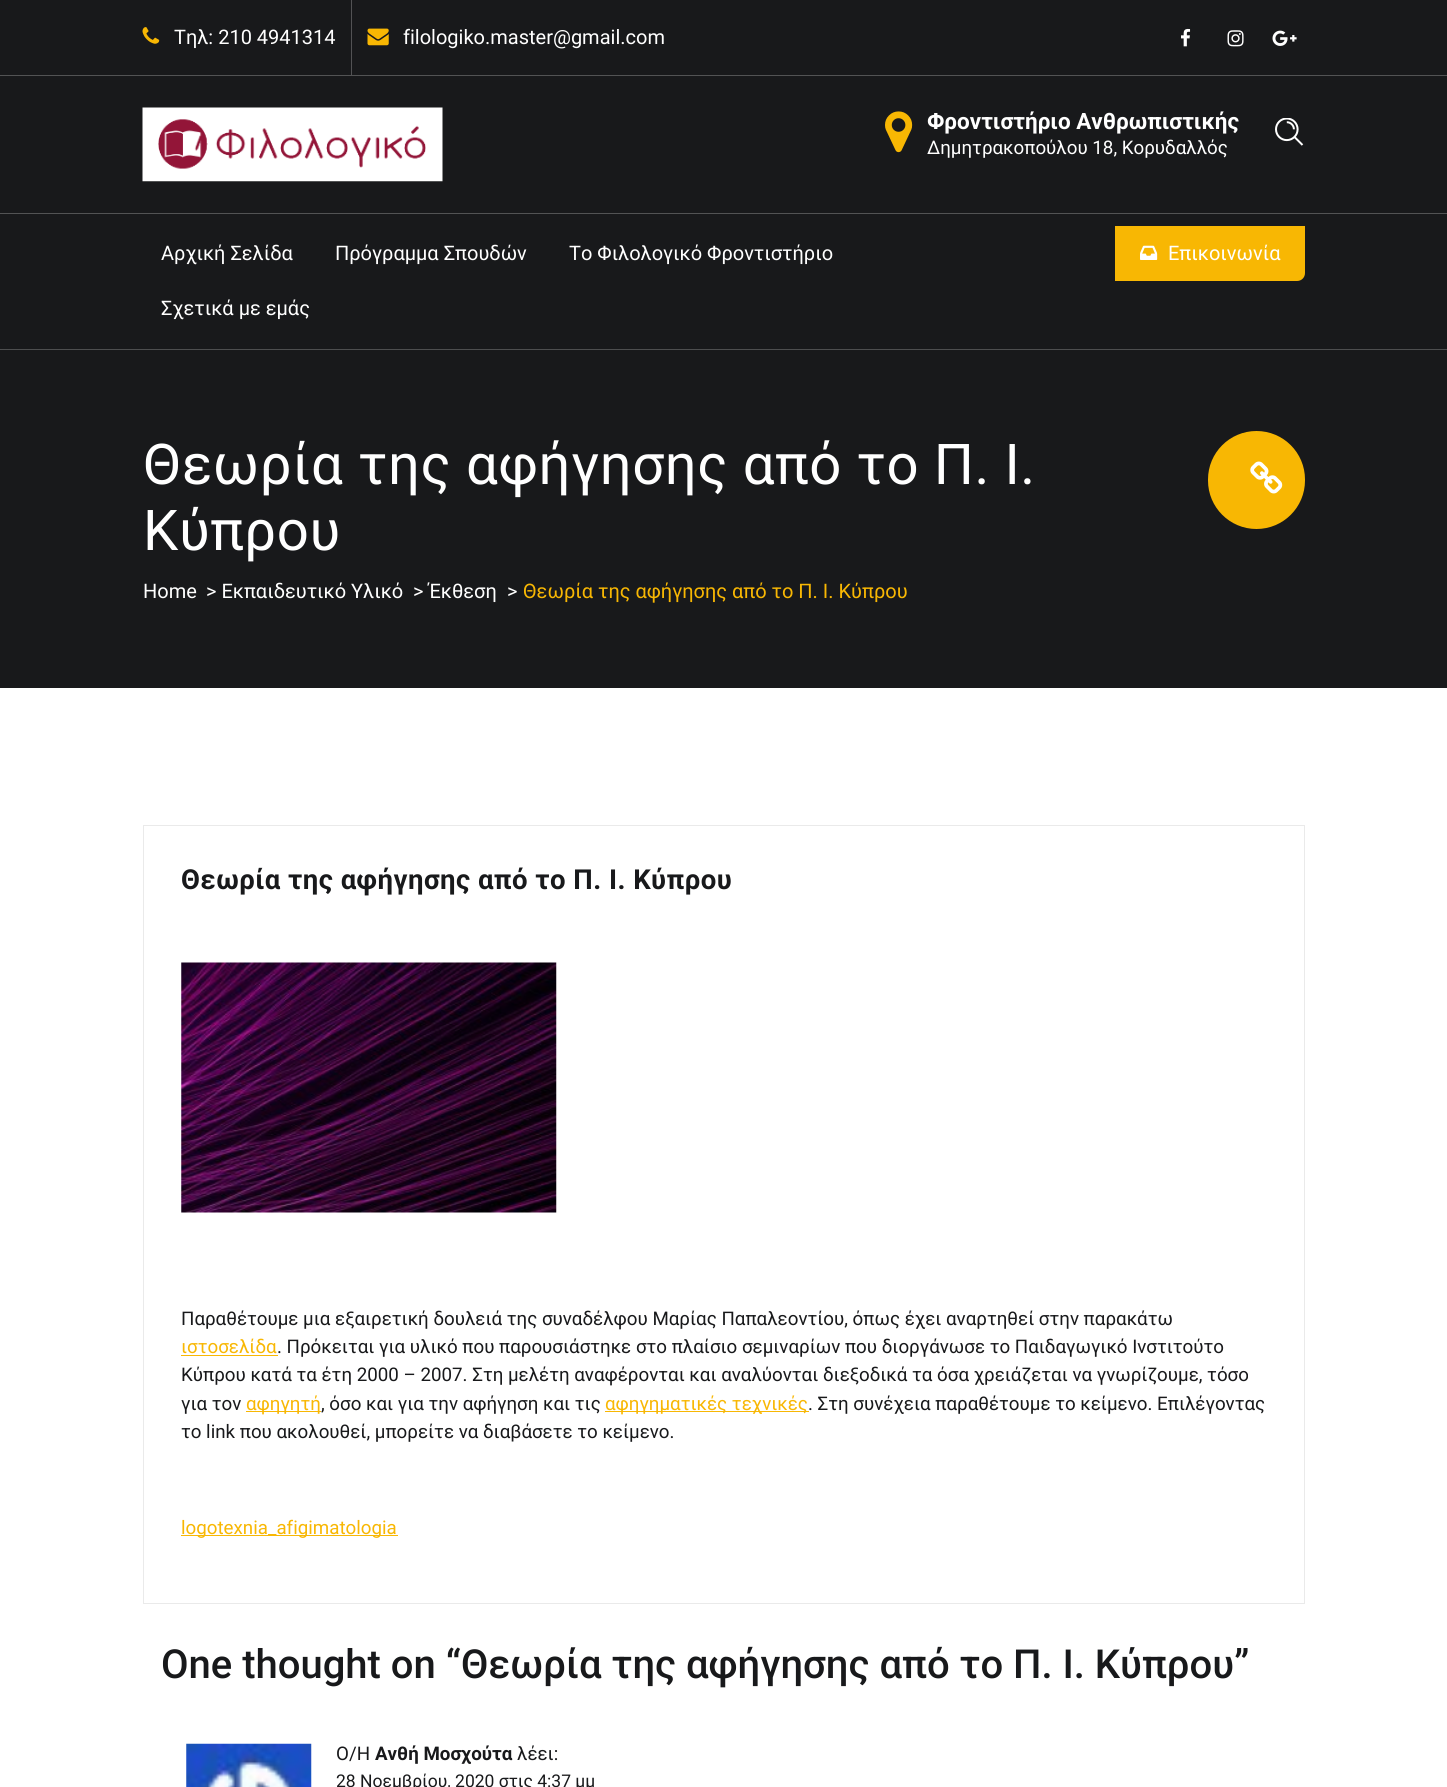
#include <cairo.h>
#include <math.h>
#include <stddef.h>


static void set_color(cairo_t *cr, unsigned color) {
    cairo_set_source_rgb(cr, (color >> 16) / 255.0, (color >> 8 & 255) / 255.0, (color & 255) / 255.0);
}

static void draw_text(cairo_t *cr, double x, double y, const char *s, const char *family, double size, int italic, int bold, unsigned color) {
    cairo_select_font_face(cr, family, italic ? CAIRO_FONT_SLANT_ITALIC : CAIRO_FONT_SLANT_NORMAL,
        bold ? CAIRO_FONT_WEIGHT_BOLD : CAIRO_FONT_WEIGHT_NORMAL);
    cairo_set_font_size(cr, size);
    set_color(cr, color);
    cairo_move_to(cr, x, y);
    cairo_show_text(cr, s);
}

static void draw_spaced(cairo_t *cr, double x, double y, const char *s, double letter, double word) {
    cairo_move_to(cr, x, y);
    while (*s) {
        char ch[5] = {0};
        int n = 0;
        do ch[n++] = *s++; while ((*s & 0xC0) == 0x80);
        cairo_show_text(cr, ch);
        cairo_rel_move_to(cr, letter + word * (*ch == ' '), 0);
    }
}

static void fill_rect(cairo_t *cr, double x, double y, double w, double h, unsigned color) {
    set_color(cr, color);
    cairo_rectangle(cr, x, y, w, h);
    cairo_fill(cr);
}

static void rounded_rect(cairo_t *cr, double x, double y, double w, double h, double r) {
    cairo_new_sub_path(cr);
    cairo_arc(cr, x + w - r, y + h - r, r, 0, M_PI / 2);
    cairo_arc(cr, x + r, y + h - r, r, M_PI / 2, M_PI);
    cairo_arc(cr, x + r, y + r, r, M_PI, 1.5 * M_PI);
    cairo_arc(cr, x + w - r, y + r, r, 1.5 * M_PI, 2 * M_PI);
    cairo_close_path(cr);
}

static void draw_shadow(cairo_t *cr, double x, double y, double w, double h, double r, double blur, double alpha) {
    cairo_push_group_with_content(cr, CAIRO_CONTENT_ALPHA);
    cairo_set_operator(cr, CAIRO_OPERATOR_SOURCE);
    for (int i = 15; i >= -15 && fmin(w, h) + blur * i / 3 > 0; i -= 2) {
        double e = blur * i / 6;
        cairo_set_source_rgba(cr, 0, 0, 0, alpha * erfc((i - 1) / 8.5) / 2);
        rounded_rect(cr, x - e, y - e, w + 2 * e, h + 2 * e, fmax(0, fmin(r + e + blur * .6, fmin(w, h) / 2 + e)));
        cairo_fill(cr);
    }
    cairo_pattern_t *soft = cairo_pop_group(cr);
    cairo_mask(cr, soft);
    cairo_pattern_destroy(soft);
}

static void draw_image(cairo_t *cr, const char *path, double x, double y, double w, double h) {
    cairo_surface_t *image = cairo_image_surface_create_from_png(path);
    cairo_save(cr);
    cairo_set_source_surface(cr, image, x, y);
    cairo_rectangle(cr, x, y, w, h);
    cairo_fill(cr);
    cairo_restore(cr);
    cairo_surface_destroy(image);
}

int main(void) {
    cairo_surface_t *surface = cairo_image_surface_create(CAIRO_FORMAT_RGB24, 1447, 1787);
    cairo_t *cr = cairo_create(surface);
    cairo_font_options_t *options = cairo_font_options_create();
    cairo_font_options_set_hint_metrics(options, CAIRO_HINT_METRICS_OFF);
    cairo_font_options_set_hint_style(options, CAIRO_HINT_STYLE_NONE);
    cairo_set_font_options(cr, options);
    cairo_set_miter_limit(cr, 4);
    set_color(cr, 0xFFFFFF);
    cairo_paint(cr);
    fill_rect(cr, 0, 0, 1447, 349, 0x18191B);
    fill_rect(cr, 0, 349, 1447, 1, 0x525354);
    fill_rect(cr, 0, 75, 1447, 1, 0x525354);
    draw_image(cr, "assets/img1.png", 142, 27, 18, 17);
    draw_text(cr, 174, 44, "Τηλ: 210 4941314", "Roboto", 20, 0, 0, 0xFFFFFF);
    cairo_save(cr);
    cairo_rectangle(cr, 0, 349, 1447, 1);
    cairo_clip(cr);
    set_color(cr, 0x000000);
    draw_shadow(cr, 0, 79, 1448, 272, 0, 2, 0.08);
    cairo_restore(cr);
    fill_rect(cr, 351, 0, 1, 75, 0x525254);
    draw_image(cr, "assets/img2.png", 367, 28, 22, 18);
    draw_text(cr, 403, 44, "filologiko.master@gmail.com", "Roboto", 20, 0, 0, 0xFFFFFF);
    draw_image(cr, "assets/img3.png", 1181, 28, 10, 19);
    draw_image(cr, "assets/img4.png", 1227, 30, 17, 17);
    draw_image(cr, "assets/img5.png", 1272, 30, 25, 16);
    fill_rect(cr, 0, 213, 1447, 1, 0x525354);
    draw_image(cr, "assets/img6.png", 142, 107, 301, 75);
    draw_image(cr, "assets/img7.png", 885, 111, 28, 42);
    draw_text(cr, 927, 129, "Φροντιστήριο Ανθρωπιστικής", "Roboto", 22.5, 0, 1, 0xFFFFFF);
    draw_text(cr, 927, 154, "Δημητρακοπούλου 18, Κορυδαλλός", "Roboto", 18.75, 0, 0, 0xFFFFFF);
    draw_image(cr, "assets/img8.png", 1275, 118, 29, 28);
    draw_text(cr, 161, 260, "Αρχική Σελίδα", "Roboto", 20, 0, 0, 0xFFFFFF);
    draw_text(cr, 335, 260, "Πρόγραμμα Σπουδών", "Roboto", 20, 0, 0, 0xFFFFFF);
    draw_text(cr, 569, 260, "Το Φιλολογικό Φροντιστήριο", "Roboto", 20, 0, 0, 0xFFFFFF);
    draw_text(cr, 161, 315, "Σχετικά με εμάς", "Roboto", 20, 0, 0, 0xFFFFFF);
    set_color(cr, 0xF8B703);
    cairo_new_path(cr);
    cairo_move_to(cr, 1115, 226);
    cairo_line_to(cr, 1305, 226);
    cairo_line_to(cr, 1305, 273);
    cairo_curve_to(cr, 1305, 277.5, 1301.5, 281, 1297, 281);
    cairo_line_to(cr, 1115, 281);
    cairo_close_path(cr);
    cairo_fill(cr);
    draw_image(cr, "assets/img9.png", 1140, 245, 18, 15);
    draw_text(cr, 1168, 260, "Επικοινωνία", "Roboto", 20, 0, 0, 0xFFFFFF);
    fill_rect(cr, 0, 350, 1447, 338, 0x18191B);
    cairo_set_font_size(cr, 56.25);
    set_color(cr, 0xFFFFFF);
    draw_spaced(cr, 143, 484, "Θεωρία της αφήγησης από το Π. Ι.", 0.6, 0);
    draw_spaced(cr, 143, 550, "Κύπρου", 0.6, 0);
    draw_text(cr, 143, 598, "Home", "Roboto", 20, 0, 0, 0xFFFFFF);
    draw_text(cr, 206, 598, "> Εκπαιδευτικό Υλικό", "Roboto", 20, 0, 0, 0xFFFFFF);
    draw_text(cr, 413, 598, "> Έκθεση", "Roboto", 20, 0, 0, 0xFFFFFF);
    draw_text(cr, 507, 598, ">", "Roboto", 20, 0, 0, 0xFFFFFF);
    draw_text(cr, 523, 598, "Θεωρία της αφήγησης από το Π. Ι. Κύπρου", "Roboto", 20, 0, 0, 0xF8B703);
    rounded_rect(cr, 1208, 431, 97, 98, 48.5);
    cairo_fill(cr);
    draw_image(cr, "assets/img10.png", 1250, 461, 33, 33);
    cairo_rectangle(cr, 143.5, 825.5, 1161, 778);
    set_color(cr, 0xEAEAEA);
    cairo_set_line_width(cr, 1);
    cairo_stroke(cr);
    cairo_select_font_face(cr, "Roboto", CAIRO_FONT_SLANT_NORMAL, CAIRO_FONT_WEIGHT_BOLD);
    cairo_set_font_size(cr, 27.5);
    set_color(cr, 0x18191B);
    draw_spaced(cr, 181, 889, "Θεωρία της αφήγησης από το Π. Ι. Κύπρου", 0.45, 0);
    draw_image(cr, "assets/img11.png", 181, 962, 376, 251);
    draw_text(cr, 181, 1325, "Παραθέτουμε μια εξαιρετική δουλειά της συναδέλφου Μαρίας Παπαλεοντίου, όπως έχει αναρτηθεί στην παρακάτω", "Roboto", 18.75, 0, 0, 0x18191B);
    draw_text(cr, 181, 1353, "ιστοσελίδα", "Roboto", 18.75, 0, 0, 0xF8B703);
    fill_rect(cr, 181, 1355, 97, 1, 0xF8B703);
    draw_text(cr, 277, 1353, ". Πρόκειται για υλικό που παρουσιάστηκε στο πλαίσιο σεμιναρίων που διοργάνωσε το Παιδαγωγικό Ινστιτούτο", "Roboto", 18.75, 0, 0, 0x18191B);
    draw_text(cr, 181, 1381, "Κύπρου κατά τα έτη 2000 – 2007. Στη μελέτη αναφέρονται και αναλύονται διεξοδικά τα όσα χρειάζεται να γνωρίζουμε, τόσο", "Roboto", 18.75, 0, 0, 0x18191B);
    draw_text(cr, 181, 1410, "για τον", "Roboto", 18.75, 0, 0, 0x18191B);
    fill_rect(cr, 246, 1411, 75, 1, 0xF8B703);
    draw_text(cr, 246, 1410, "αφηγητή", "Roboto", 18.75, 0, 0, 0xF8B703);
    draw_text(cr, 321, 1410, ", όσο και για την αφήγηση και τις", "Roboto", 18.75, 0, 0, 0x18191B);
    fill_rect(cr, 605, 1411, 204, 1, 0xF8B703);
    draw_text(cr, 605, 1410, "αφηγηματικές τεχνικές", "Roboto", 18.75, 0, 0, 0xF8B703);
    draw_text(cr, 808, 1410, ". Στη συνέχεια παραθέτουμε το κείμενο. Επιλέγοντας", "Roboto", 18.75, 0, 0, 0x18191B);
    draw_text(cr, 181, 1438, "το link που ακολουθεί, μπορείτε να διαβάσετε το κείμενο.", "Roboto", 18.75, 0, 0, 0x18191B);
    fill_rect(cr, 181, 1535, 217, 1, 0xF8B703);
    draw_text(cr, 181, 1534, "logotexnia_afigimatologia", "Roboto", 18.75, 0, 0, 0xF8B703);
    draw_text(cr, 161, 1678, "One thought on “Θεωρία της αφήγησης από το Π. Ι. Κύπρου”", "Roboto Medium", 40, 0, 0, 0x18191B);
    draw_image(cr, "assets/img12.png", 186, 1743, 126, 44);
    draw_text(cr, 336, 1760, "Ο/Η", "Roboto", 18.75, 0, 0, 0x18191B);
    draw_text(cr, 375, 1760, "Ανθή Μοσχούτα", "Roboto", 18.75, 0, 1, 0x18191B);
    draw_text(cr, 517, 1760, "λέει:", "Roboto", 18.75, 0, 0, 0x18191B);
    draw_text(cr, 336, 1787, "28 Νοεμβρίου, 2020 στις 4:37 μμ", "Roboto", 17.5, 0, 0, 0x18191B);
    cairo_surface_write_to_png(surface, "output.png");
    cairo_font_options_destroy(options);
    cairo_destroy(cr);
    cairo_surface_destroy(surface);
    return 0;
}
